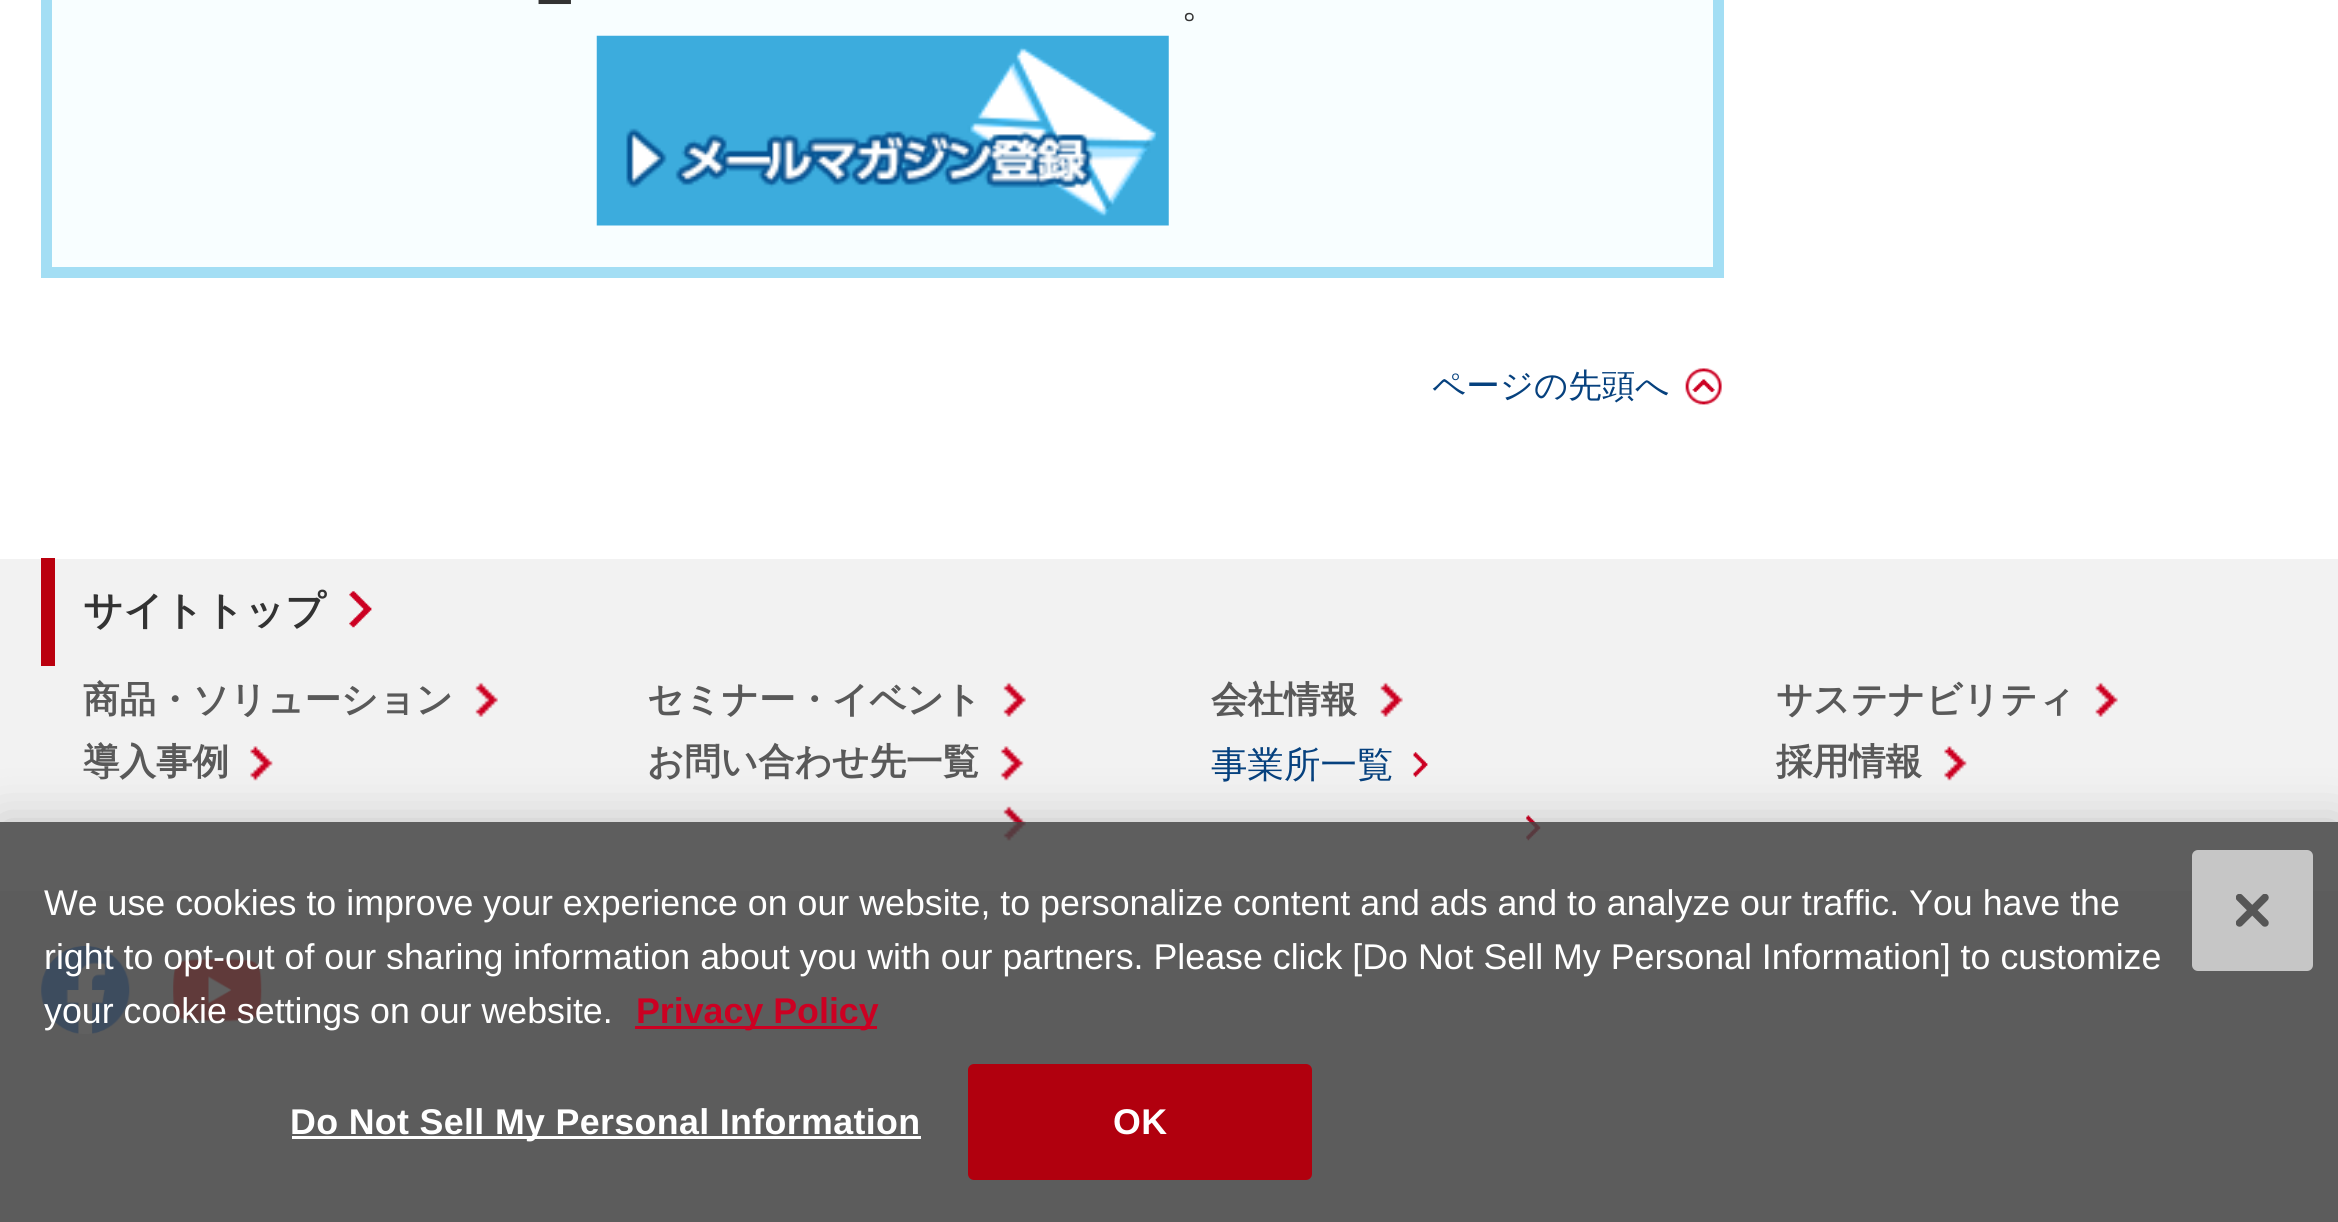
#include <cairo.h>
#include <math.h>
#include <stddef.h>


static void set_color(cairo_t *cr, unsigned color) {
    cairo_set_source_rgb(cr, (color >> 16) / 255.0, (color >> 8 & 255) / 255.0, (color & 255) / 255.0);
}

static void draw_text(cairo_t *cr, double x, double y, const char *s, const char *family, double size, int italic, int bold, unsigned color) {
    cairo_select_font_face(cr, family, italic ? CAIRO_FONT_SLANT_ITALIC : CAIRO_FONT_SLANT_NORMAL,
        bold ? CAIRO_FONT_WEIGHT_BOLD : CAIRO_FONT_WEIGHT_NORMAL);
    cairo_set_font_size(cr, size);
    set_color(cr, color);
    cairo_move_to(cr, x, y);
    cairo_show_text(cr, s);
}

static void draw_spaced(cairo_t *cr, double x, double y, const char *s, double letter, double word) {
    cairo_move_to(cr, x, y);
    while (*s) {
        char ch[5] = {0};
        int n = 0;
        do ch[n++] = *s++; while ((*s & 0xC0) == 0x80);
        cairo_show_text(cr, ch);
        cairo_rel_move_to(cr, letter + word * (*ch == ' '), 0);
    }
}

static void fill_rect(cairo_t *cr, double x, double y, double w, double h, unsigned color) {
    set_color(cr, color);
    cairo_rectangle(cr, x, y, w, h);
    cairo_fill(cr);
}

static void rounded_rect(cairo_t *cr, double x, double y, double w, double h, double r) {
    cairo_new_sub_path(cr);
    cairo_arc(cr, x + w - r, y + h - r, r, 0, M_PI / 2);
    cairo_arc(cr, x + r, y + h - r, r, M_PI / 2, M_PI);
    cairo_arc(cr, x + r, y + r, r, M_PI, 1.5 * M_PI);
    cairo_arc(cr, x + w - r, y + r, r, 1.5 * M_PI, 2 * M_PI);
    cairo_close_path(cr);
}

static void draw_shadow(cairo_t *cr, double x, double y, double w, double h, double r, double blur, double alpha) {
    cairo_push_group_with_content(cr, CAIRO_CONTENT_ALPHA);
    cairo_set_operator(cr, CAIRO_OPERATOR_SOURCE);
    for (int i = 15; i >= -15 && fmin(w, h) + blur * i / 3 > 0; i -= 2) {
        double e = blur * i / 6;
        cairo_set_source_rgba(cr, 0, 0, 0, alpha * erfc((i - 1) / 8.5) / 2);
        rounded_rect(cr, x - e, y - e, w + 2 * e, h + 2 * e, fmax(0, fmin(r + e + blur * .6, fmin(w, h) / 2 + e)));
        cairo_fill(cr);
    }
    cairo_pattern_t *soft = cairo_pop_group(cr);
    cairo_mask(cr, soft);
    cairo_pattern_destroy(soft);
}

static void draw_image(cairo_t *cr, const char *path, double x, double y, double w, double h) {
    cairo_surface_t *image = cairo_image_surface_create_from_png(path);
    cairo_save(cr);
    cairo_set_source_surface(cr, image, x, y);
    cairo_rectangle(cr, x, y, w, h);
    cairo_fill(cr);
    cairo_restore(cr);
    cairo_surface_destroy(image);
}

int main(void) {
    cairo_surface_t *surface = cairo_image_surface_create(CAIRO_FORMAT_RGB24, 2338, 1222);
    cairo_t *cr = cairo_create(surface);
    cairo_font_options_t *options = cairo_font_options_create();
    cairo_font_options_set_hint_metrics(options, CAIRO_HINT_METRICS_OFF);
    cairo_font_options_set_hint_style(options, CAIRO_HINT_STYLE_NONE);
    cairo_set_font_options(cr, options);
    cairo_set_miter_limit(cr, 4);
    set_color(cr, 0xFFFFFF);
    cairo_paint(cr);
    set_color(cr, 0xF8FEFF);
    cairo_rectangle(cr, 46.5, -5.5, 1672, 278);
    cairo_fill_preserve(cr);
    set_color(cr, 0xA3DEF4);
    cairo_set_line_width(cr, 11);
    cairo_stroke(cr);
    draw_text(cr, 535, 17, "ー", "WenQuanYi Zen Hei Medium", 39.5, 0, 0, 0x333333);
    draw_text(cr, 1181, 17, "。", "WenQuanYi Zen Hei Medium", 39.5, 0, 0, 0x333333);
    draw_image(cr, "assets/img1.png", 596, 35, 573, 191);
    draw_image(cr, "assets/img2.png", 1685, 368, 37, 37);
    draw_text(cr, 1432, 397, "ページの先頭へ", "WenQuanYi Zen Hei Medium", 33.5, 0, 0, 0x06417E);
    fill_rect(cr, 0, 559, 2338, 332, 0xF2F2F2);
    fill_rect(cr, 41, 558, 14, 108, 0xBA000E);
    draw_text(cr, 83, 624, "サイトトップ", "WenQuanYi Zen Hei", 39.5, 0, 1, 0x333333);
    draw_image(cr, "assets/img3.png", 349, 591, 23, 37);
    draw_text(cr, 83, 712, "商品・ソリューション", "WenQuanYi Zen Hei", 36.5, 0, 1, 0x595959);
    draw_image(cr, "assets/img4.png", 475, 682, 23, 35);
    draw_text(cr, 83, 774, "導入事例", "WenQuanYi Zen Hei", 36.5, 0, 1, 0x595959);
    draw_image(cr, "assets/img5.png", 250, 746, 23, 35);
    draw_text(cr, 647, 712, "セミナー・イベント", "WenQuanYi Zen Hei", 36.5, 0, 1, 0x595959);
    draw_image(cr, "assets/img4.png", 1003, 682, 23, 35);
    draw_text(cr, 647, 774, "お問い合わせ先一覧", "WenQuanYi Zen Hei", 36.5, 0, 1, 0x595959);
    draw_image(cr, "assets/img6.png", 1000, 746, 24, 35);
    draw_image(cr, "assets/img7.png", 1003, 806, 23, 35);
    draw_text(cr, 1211, 712, "会社情報", "WenQuanYi Zen Hei", 36.5, 0, 1, 0x595959);
    draw_image(cr, "assets/img8.png", 1380, 682, 23, 35);
    draw_text(cr, 1211, 777, "事業所一覧", "WenQuanYi Zen Hei Medium", 36.5, 0, 0, 0x06417E);
    draw_image(cr, "assets/img9.png", 1413, 752, 15, 26);
    draw_image(cr, "assets/img10.png", 1526, 815, 15, 26);
    draw_text(cr, 1776, 712, "サステナビリティ", "WenQuanYi Zen Hei", 36.5, 0, 1, 0x595959);
    draw_image(cr, "assets/img8.png", 2095, 682, 23, 35);
    draw_text(cr, 1776, 774, "採用情報", "WenQuanYi Zen Hei", 36.5, 0, 1, 0x595959);
    draw_image(cr, "assets/img5.png", 1944, 746, 23, 35);
    fill_rect(cr, 0, 891, 2338, 331, 0xE5E5E5);
    draw_image(cr, "assets/img12.png", 41, 946, 89, 88);
    draw_image(cr, "assets/img13.png", 173, 958, 89, 64);
    cairo_save(cr);
    cairo_set_fill_rule(cr, CAIRO_FILL_RULE_EVEN_ODD);
    cairo_new_path(cr);
    cairo_move_to(cr, 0, 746);
    cairo_line_to(cr, 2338, 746);
    cairo_line_to(cr, 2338, 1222);
    cairo_line_to(cr, 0, 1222);
    cairo_close_path(cr);
    cairo_move_to(cr, 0, 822);
    cairo_line_to(cr, 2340, 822);
    cairo_line_to(cr, 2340, 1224);
    cairo_line_to(cr, 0, 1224);
    cairo_close_path(cr);
    cairo_clip(cr);
    set_color(cr, 0x000000);
    draw_shadow(cr, 0, 822, 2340, 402, 0, 25, 0.2);
    cairo_restore(cr);
    cairo_set_source_rgba(cr, 0.267, 0.267, 0.267, 0.85);
    cairo_rectangle(cr, 0, 822, 2338, 400);
    cairo_fill(cr);
    draw_text(cr, 44, 915, "We use cookies to improve your experience on our website, to personalize content and ads and to analyze our traffic. You have the", "Liberation Sans", 35.77, 0, 0, 0xFFFFFF);
    draw_text(cr, 44, 969, "right to opt-out of our sharing information about you with our partners. Please click [Do Not Sell My Personal Information] to customize", "Liberation Sans", 35.77, 0, 0, 0xFFFFFF);
    draw_text(cr, 44, 1023, "your cookie settings on our website.", "Liberation Sans", 35.77, 0, 0, 0xFFFFFF);
    fill_rect(cr, 635, 1026, 242, 3, 0xCC0022);
    draw_text(cr, 636, 1023, "Privacy Policy", "Liberation Sans", 35.77, 0, 1, 0xCC0022);
    fill_rect(cr, 292, 1136, 629, 3, 0xFFFFFF);
    draw_spaced(cr, 290, 1134, "Do Not Sell My Personal Information", 0.35, 0);
    set_color(cr, 0xB1000E);
    rounded_rect(cr, 969.5, 1065.5, 341, 113, 4.5);
    cairo_fill_preserve(cr);
    cairo_set_line_width(cr, 3);
    cairo_stroke(cr);
    set_color(cr, 0xFFFFFF);
    draw_spaced(cr, 1113, 1134, "OK", 0.35, 0);
    set_color(cr, 0xC6C6C6);
    rounded_rect(cr, 2192, 850, 121, 121, 6);
    cairo_fill(cr);
    draw_image(cr, "assets/img11.png", 2236, 894, 33, 33);
    cairo_surface_write_to_png(surface, "output.png");
    cairo_font_options_destroy(options);
    cairo_destroy(cr);
    cairo_surface_destroy(surface);
    return 0;
}
